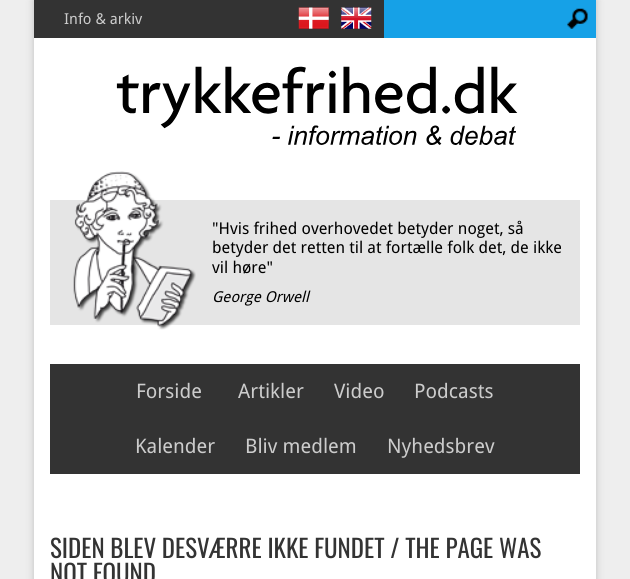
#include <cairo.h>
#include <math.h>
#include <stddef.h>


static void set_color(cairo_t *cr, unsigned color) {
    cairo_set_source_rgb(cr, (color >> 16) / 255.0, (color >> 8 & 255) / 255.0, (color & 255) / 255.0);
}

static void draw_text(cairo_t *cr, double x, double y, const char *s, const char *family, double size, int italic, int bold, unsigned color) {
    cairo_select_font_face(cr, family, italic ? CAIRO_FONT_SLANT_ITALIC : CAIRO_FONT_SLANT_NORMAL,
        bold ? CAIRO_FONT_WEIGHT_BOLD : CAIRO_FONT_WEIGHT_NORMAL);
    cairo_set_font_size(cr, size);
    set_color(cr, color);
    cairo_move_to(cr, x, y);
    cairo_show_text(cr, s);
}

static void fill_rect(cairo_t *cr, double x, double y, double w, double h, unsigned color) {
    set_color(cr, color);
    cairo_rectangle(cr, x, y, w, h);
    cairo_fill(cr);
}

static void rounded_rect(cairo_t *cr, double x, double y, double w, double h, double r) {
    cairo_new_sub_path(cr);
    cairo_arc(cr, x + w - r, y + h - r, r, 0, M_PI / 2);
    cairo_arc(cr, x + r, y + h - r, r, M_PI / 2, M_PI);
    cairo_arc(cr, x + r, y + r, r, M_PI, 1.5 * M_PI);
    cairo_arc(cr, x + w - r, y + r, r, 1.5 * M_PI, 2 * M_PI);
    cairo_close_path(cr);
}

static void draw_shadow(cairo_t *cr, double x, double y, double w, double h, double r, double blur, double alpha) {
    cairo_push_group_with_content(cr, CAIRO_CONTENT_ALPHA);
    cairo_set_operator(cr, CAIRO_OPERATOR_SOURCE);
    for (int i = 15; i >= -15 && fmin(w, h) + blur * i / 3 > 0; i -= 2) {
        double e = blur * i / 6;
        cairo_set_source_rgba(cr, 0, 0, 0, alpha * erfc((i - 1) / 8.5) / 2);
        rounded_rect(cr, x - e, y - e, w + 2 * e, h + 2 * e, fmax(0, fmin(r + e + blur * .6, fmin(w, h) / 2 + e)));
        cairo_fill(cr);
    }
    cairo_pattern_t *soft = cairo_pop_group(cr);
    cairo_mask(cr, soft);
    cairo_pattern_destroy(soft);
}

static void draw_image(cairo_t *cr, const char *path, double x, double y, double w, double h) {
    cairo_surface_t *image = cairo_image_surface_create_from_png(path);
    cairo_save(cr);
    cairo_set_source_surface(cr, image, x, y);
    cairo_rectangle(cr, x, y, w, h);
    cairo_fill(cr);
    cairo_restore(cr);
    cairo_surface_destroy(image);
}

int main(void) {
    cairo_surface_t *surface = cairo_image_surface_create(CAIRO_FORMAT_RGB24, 630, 579);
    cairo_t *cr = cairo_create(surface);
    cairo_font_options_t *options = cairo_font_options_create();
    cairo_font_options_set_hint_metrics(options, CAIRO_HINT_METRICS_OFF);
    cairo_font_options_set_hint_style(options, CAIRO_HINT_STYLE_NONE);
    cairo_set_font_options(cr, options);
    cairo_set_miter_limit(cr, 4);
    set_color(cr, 0xEEEEEE);
    cairo_paint(cr);
    set_color(cr, 0x000000);
    draw_shadow(cr, 34, 0, 562, 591, 0, 4, 0.2);
    fill_rect(cr, 34, 38, 562, 541, 0xFFFFFF);
    fill_rect(cr, 34, 0, 350, 38, 0x333333);
    draw_text(cr, 64, 24, "Info & arkiv", "Droid Sans", 15, 0, 0, 0xCCCCCC);
    draw_image(cr, "assets/img1.png", 298, 7, 31, 22);
    draw_image(cr, "assets/img2.png", 341, 7, 31, 22);
    fill_rect(cr, 384, 0, 212, 38, 0x16A1E7);
    draw_image(cr, "assets/img3.png", 567, 8, 21, 21);
    draw_image(cr, "assets/img4.png", 116, 66, 402, 79);
    fill_rect(cr, 50, 200, 530, 125, 0xE5E5E5);
    draw_image(cr, "assets/img5.png", 73, 171, 123, 159);
    draw_text(cr, 212, 234, "\"Hvis frihed overhovedet betyder noget, så", "Droid Sans", 16.25, 0, 0, 0x000000);
    draw_text(cr, 212, 253, "betyder det retten til at fortælle folk det, de ikke", "Droid Sans", 16.25, 0, 0, 0x000000);
    draw_text(cr, 212, 273, "vil høre\"", "Droid Sans", 16.25, 0, 0, 0x000000);
    draw_text(cr, 212, 302, "George Orwell", "Droid Sans", 15, 1, 0, 0x000000);
    fill_rect(cr, 50, 364, 530, 110, 0x333333);
    draw_text(cr, 136, 398, "Forside", "Droid Sans", 20, 0, 0, 0xCCCCCC);
    draw_text(cr, 238, 398, "Artikler", "Droid Sans", 20, 0, 0, 0xCCCCCC);
    draw_text(cr, 334, 398, "Video", "Droid Sans", 20, 0, 0, 0xCCCCCC);
    draw_text(cr, 414, 398, "Podcasts", "Droid Sans", 20, 0, 0, 0xCCCCCC);
    draw_text(cr, 135, 453, "Kalender", "Droid Sans", 20, 0, 0, 0xCCCCCC);
    draw_text(cr, 245, 453, "Bliv medlem", "Droid Sans", 20, 0, 0, 0xCCCCCC);
    draw_text(cr, 387, 453, "Nyhedsbrev", "Droid Sans", 20, 0, 0, 0xCCCCCC);
    draw_text(cr, 50, 558, "SIDEN BLEV DESVÆRRE IKKE FUNDET / THE PAGE WAS", "Oswald", 25, 0, 0, 0x333333);
    draw_text(cr, 50, 583, "NOT FOUND", "Oswald", 25, 0, 0, 0x333333);
    cairo_surface_write_to_png(surface, "output.png");
    cairo_font_options_destroy(options);
    cairo_destroy(cr);
    cairo_surface_destroy(surface);
    return 0;
}
